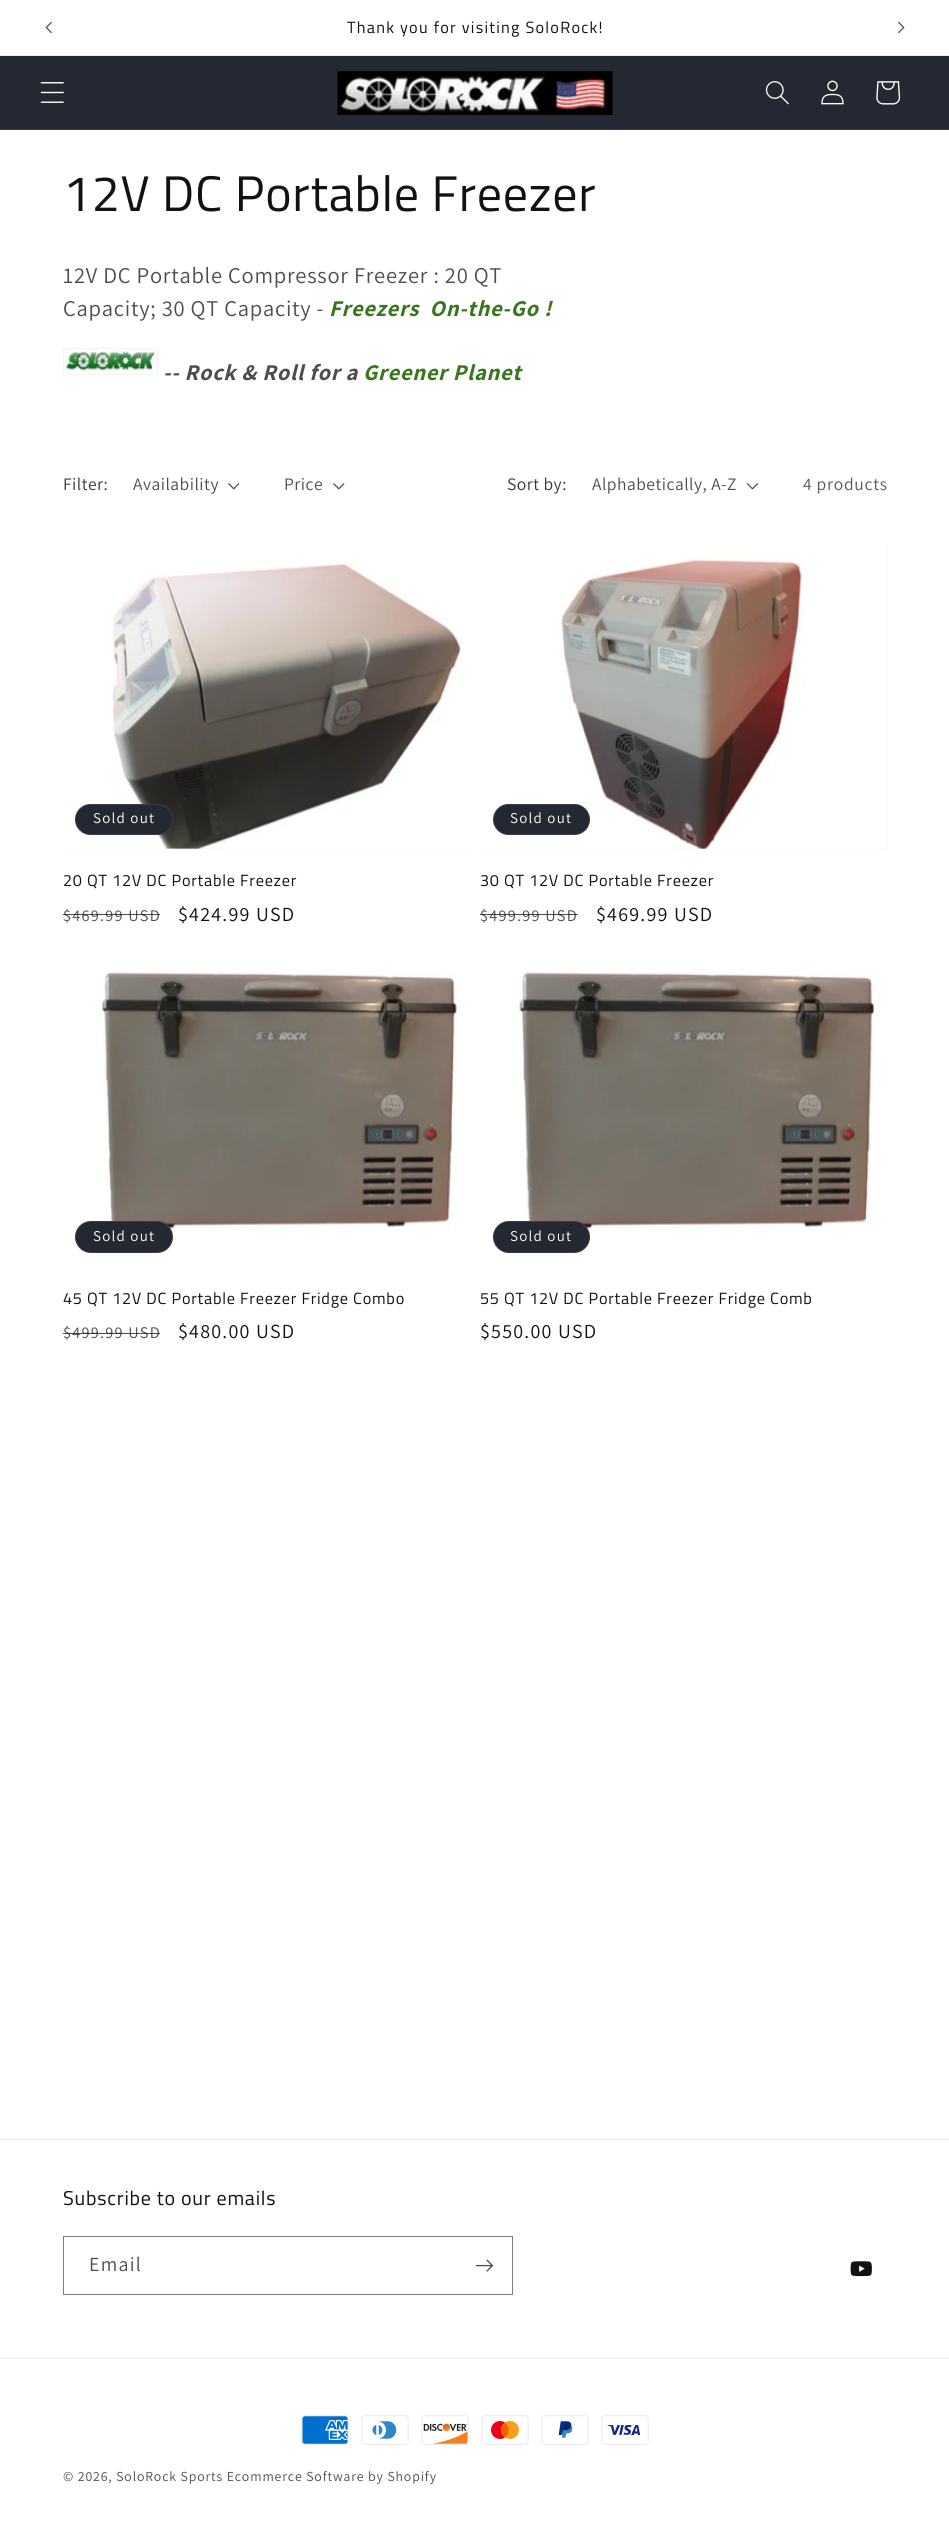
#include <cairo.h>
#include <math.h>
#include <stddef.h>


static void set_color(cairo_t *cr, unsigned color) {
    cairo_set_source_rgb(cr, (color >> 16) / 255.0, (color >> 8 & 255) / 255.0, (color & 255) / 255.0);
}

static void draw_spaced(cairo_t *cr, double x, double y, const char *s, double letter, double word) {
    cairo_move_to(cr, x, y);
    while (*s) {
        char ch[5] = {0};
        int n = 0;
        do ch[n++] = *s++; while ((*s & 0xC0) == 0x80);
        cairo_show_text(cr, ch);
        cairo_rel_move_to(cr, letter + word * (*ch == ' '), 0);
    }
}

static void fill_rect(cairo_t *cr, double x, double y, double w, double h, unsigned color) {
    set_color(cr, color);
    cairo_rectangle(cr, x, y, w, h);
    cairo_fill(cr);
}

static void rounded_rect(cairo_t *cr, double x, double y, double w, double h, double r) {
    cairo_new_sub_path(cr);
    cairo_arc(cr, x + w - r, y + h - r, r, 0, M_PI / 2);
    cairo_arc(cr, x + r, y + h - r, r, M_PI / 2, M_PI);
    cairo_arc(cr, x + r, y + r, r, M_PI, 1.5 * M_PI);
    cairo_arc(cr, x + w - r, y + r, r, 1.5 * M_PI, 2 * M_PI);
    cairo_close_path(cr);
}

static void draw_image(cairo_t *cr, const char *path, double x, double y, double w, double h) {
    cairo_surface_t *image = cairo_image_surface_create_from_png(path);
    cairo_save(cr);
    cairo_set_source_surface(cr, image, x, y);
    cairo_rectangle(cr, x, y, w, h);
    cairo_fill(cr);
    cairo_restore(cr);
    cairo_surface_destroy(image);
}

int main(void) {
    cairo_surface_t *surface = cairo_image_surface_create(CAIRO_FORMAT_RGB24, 949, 2533);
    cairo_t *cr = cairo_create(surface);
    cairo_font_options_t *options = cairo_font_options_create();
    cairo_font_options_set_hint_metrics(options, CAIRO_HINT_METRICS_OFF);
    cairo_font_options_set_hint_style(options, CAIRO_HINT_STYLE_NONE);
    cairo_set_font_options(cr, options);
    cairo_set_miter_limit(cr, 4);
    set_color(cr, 0xFFFFFF);
    cairo_paint(cr);
    fill_rect(cr, 0, 55, 949, 1, 0xECECEC);
    draw_image(cr, "assets/img1.png", 45, 21, 7, 13);
    cairo_select_font_face(cr, "Titillium Web", CAIRO_FONT_SLANT_NORMAL, CAIRO_FONT_WEIGHT_NORMAL);
    cairo_set_font_size(cr, 16.25);
    set_color(cr, 0x121212);
    draw_spaced(cr, 347, 33, "Thank you for visiting SoloRock!", 1.25, 0);
    draw_image(cr, "assets/img2.png", 898, 21, 7, 13);
    fill_rect(cr, 0, 56, 949, 73, 0x242833);
    fill_rect(cr, 0, 129, 949, 1, 0x363943);
    draw_image(cr, "assets/img3.png", 40, 82, 24, 21);
    draw_image(cr, "assets/img4.png", 337, 71, 276, 44);
    draw_image(cr, "assets/img5.png", 765, 81, 24, 24);
    draw_image(cr, "assets/img6.png", 821, 80, 23, 25);
    draw_image(cr, "assets/img7.png", 876, 81, 25, 24);
    cairo_set_font_size(cr, 50);
    set_color(cr, 0x121212);
    draw_spaced(cr, 63, 211, "12V DC Portable Freezer", 0.75, 0);
    cairo_select_font_face(cr, "Assistant", CAIRO_FONT_SLANT_NORMAL, CAIRO_FONT_WEIGHT_NORMAL);
    cairo_set_font_size(cr, 22.5);
    set_color(cr, 0x4D4D4D);
    draw_spaced(cr, 63, 283, "12V DC Portable Compressor Freezer : 20 QT", 0.75, 0);
    draw_spaced(cr, 63, 316, "Capacity; 30 QT Capacity -", 0.75, 0);
    cairo_select_font_face(cr, "Assistant", CAIRO_FONT_SLANT_ITALIC, CAIRO_FONT_WEIGHT_BOLD);
    set_color(cr, 0x38761D);
    draw_spaced(cr, 329, 316, "Freezers  On-the-Go !", 0.75, 0);
    cairo_rectangle(cr, 63.5, 348.5, 94, 26);
    set_color(cr, 0xF3F3F3);
    cairo_set_line_width(cr, 1);
    cairo_stroke(cr);
    draw_image(cr, "assets/img8.png", 64, 349, 92, 25);
    set_color(cr, 0x4D4D4D);
    draw_spaced(cr, 163, 380, "-- Rock & Roll for a", 0.75, 0);
    set_color(cr, 0x38761D);
    draw_spaced(cr, 363, 380, "Greener Planet", 0.75, 0);
    cairo_select_font_face(cr, "Assistant", CAIRO_FONT_SLANT_NORMAL, CAIRO_FONT_WEIGHT_NORMAL);
    cairo_set_font_size(cr, 17.5);
    set_color(cr, 0x363636);
    draw_spaced(cr, 63, 490, "Filter:", 0.5, 0);
    set_color(cr, 0x4D4D4D);
    draw_spaced(cr, 133, 490, "Availability", 0.5, 0);
    draw_image(cr, "assets/img9.png", 228, 483, 12, 7);
    draw_spaced(cr, 284, 490, "Price", 0.5, 0);
    draw_image(cr, "assets/img9.png", 333, 483, 12, 7);
    set_color(cr, 0x363636);
    draw_spaced(cr, 507, 490, "Sort by:", 0.5, 0);
    set_color(cr, 0x4D4D4D);
    draw_spaced(cr, 592, 490, "Alphabetically, A-Z", 0.5, 0);
    draw_image(cr, "assets/img10.png", 746, 483, 13, 7);
    set_color(cr, 0x595959);
    draw_spaced(cr, 803, 490, "4 products", 0.75, 0);
    fill_rect(cr, 63, 848, 407, 1, 0xF3F3F3);
    draw_image(cr, "assets/img11.png", 63, 543, 407, 306);
    set_color(cr, 0x242833);
    rounded_rect(cr, 75, 804, 98, 31, 15.5);
    cairo_fill(cr);
    rounded_rect(cr, 75.5, 804.5, 97, 30, 15);
    cairo_set_source_rgba(cr, 1, 1, 1, 0.1);
    cairo_stroke(cr);
    cairo_set_font_size(cr, 15);
    set_color(cr, 0xFFFFFF);
    draw_spaced(cr, 93, 823, "Sold out", 1.25, 0);
    cairo_select_font_face(cr, "Titillium Web", CAIRO_FONT_SLANT_NORMAL, CAIRO_FONT_WEIGHT_NORMAL);
    cairo_set_font_size(cr, 16.25);
    set_color(cr, 0x121212);
    draw_spaced(cr, 63, 886, "20 QT 12V DC Portable Freezer", 0.75, 0);
    cairo_select_font_face(cr, "Assistant", CAIRO_FONT_SLANT_NORMAL, CAIRO_FONT_WEIGHT_NORMAL);
    set_color(cr, 0x4D4D4D);
    draw_spaced(cr, 63, 921, "$469.99 USD", 1.25, 0);
    cairo_set_source_rgba(cr, 0.071, 0.071, 0.071, 0.75);
    cairo_rectangle(cr, 63, 914, 97, 1);
    cairo_fill(cr);
    cairo_set_font_size(cr, 20);
    set_color(cr, 0x121212);
    draw_spaced(cr, 178, 921, "$424.99 USD", 1.25, 0);
    fill_rect(cr, 480, 543, 408, 306, 0xF3F3F3);
    draw_image(cr, "assets/img12.png", 480, 543, 408, 306);
    set_color(cr, 0x242833);
    rounded_rect(cr, 493, 804, 97, 31, 15.5);
    cairo_fill(cr);
    rounded_rect(cr, 493.5, 804.5, 96, 30, 15);
    cairo_set_source_rgba(cr, 1, 1, 1, 0.1);
    cairo_stroke(cr);
    cairo_set_font_size(cr, 15);
    set_color(cr, 0xFFFFFF);
    draw_spaced(cr, 510, 823, "Sold out", 1.25, 0);
    cairo_select_font_face(cr, "Titillium Web", CAIRO_FONT_SLANT_NORMAL, CAIRO_FONT_WEIGHT_NORMAL);
    cairo_set_font_size(cr, 16.25);
    set_color(cr, 0x121212);
    draw_spaced(cr, 480, 886, "30 QT 12V DC Portable Freezer", 0.75, 0);
    cairo_select_font_face(cr, "Assistant", CAIRO_FONT_SLANT_NORMAL, CAIRO_FONT_WEIGHT_NORMAL);
    set_color(cr, 0x4D4D4D);
    draw_spaced(cr, 480, 921, "$499.99 USD", 1.25, 0);
    cairo_set_source_rgba(cr, 0.071, 0.071, 0.071, 0.75);
    cairo_rectangle(cr, 480, 914, 98, 1);
    cairo_fill(cr);
    cairo_set_font_size(cr, 20);
    set_color(cr, 0x121212);
    draw_spaced(cr, 596, 921, "$469.99 USD", 1.25, 0);
    draw_image(cr, "assets/img13.png", 63, 960, 407, 306);
    set_color(cr, 0x242833);
    rounded_rect(cr, 75, 1221, 98, 32, 16);
    cairo_fill(cr);
    rounded_rect(cr, 75.5, 1221.5, 97, 31, 15.5);
    cairo_set_source_rgba(cr, 1, 1, 1, 0.1);
    cairo_stroke(cr);
    cairo_set_font_size(cr, 15);
    set_color(cr, 0xFFFFFF);
    draw_spaced(cr, 93, 1241, "Sold out", 1.25, 0);
    cairo_select_font_face(cr, "Titillium Web", CAIRO_FONT_SLANT_NORMAL, CAIRO_FONT_WEIGHT_NORMAL);
    cairo_set_font_size(cr, 16.25);
    set_color(cr, 0x121212);
    draw_spaced(cr, 63, 1304, "45 QT 12V DC Portable Freezer Fridge Combo", 0.75, 0);
    cairo_select_font_face(cr, "Assistant", CAIRO_FONT_SLANT_NORMAL, CAIRO_FONT_WEIGHT_NORMAL);
    set_color(cr, 0x4D4D4D);
    draw_spaced(cr, 63, 1338, "$499.99 USD", 1.25, 0);
    cairo_set_source_rgba(cr, 0.071, 0.071, 0.071, 0.75);
    cairo_rectangle(cr, 63, 1333, 97, 1);
    cairo_fill(cr);
    cairo_set_font_size(cr, 20);
    set_color(cr, 0x121212);
    draw_spaced(cr, 178, 1338, "$480.00 USD", 1.25, 0);
    draw_image(cr, "assets/img14.png", 480, 960, 408, 306);
    set_color(cr, 0x242833);
    rounded_rect(cr, 493, 1221, 97, 32, 16);
    cairo_fill(cr);
    rounded_rect(cr, 493.5, 1221.5, 96, 31, 15.5);
    cairo_set_source_rgba(cr, 1, 1, 1, 0.1);
    cairo_stroke(cr);
    cairo_set_font_size(cr, 15);
    set_color(cr, 0xFFFFFF);
    draw_spaced(cr, 510, 1241, "Sold out", 1.25, 0);
    cairo_select_font_face(cr, "Titillium Web", CAIRO_FONT_SLANT_NORMAL, CAIRO_FONT_WEIGHT_NORMAL);
    cairo_set_font_size(cr, 16.25);
    set_color(cr, 0x121212);
    draw_spaced(cr, 480, 1304, "55 QT 12V DC Portable Freezer Fridge Comb", 0.75, 0);
    cairo_select_font_face(cr, "Assistant", CAIRO_FONT_SLANT_NORMAL, CAIRO_FONT_WEIGHT_NORMAL);
    cairo_set_font_size(cr, 20);
    draw_spaced(cr, 480, 1338, "$550.00 USD", 1.25, 0);
    fill_rect(cr, 0, 2139, 949, 1, 0xECECEC);
    cairo_select_font_face(cr, "Titillium Web", CAIRO_FONT_SLANT_NORMAL, CAIRO_FONT_WEIGHT_NORMAL);
    set_color(cr, 0x121212);
    draw_spaced(cr, 63, 2205, "Subscribe to our emails", 0.75, 0);
    cairo_rectangle(cr, 63.5, 2236.5, 449, 58);
    set_color(cr, 0x7D7D7D);
    cairo_stroke(cr);
    cairo_select_font_face(cr, "Assistant", CAIRO_FONT_SLANT_NORMAL, CAIRO_FONT_WEIGHT_NORMAL);
    set_color(cr, 0x4D4D4D);
    draw_spaced(cr, 89, 2271, "Email", 1.25, 0);
    draw_image(cr, "assets/img15.png", 475, 2259, 18, 13);
    draw_image(cr, "assets/img16.png", 850, 2261, 22, 16);
    fill_rect(cr, 0, 2358, 949, 1, 0xECECEC);
    draw_image(cr, "assets/img17.png", 301, 2415, 48, 30);
    draw_image(cr, "assets/img18.png", 361, 2415, 48, 30);
    draw_image(cr, "assets/img19.png", 421, 2415, 48, 30);
    draw_image(cr, "assets/img20.png", 481, 2415, 48, 30);
    draw_image(cr, "assets/img21.png", 541, 2415, 48, 30);
    draw_image(cr, "assets/img22.png", 601, 2415, 48, 30);
    cairo_set_font_size(cr, 13.75);
    set_color(cr, 0x4D4D4D);
    draw_spaced(cr, 63, 2481, "© 2026, SoloRock Sports Ecommerce Software by Shopify", 0.88, 0);
    cairo_surface_write_to_png(surface, "output.png");
    cairo_font_options_destroy(options);
    cairo_destroy(cr);
    cairo_surface_destroy(surface);
    return 0;
}
